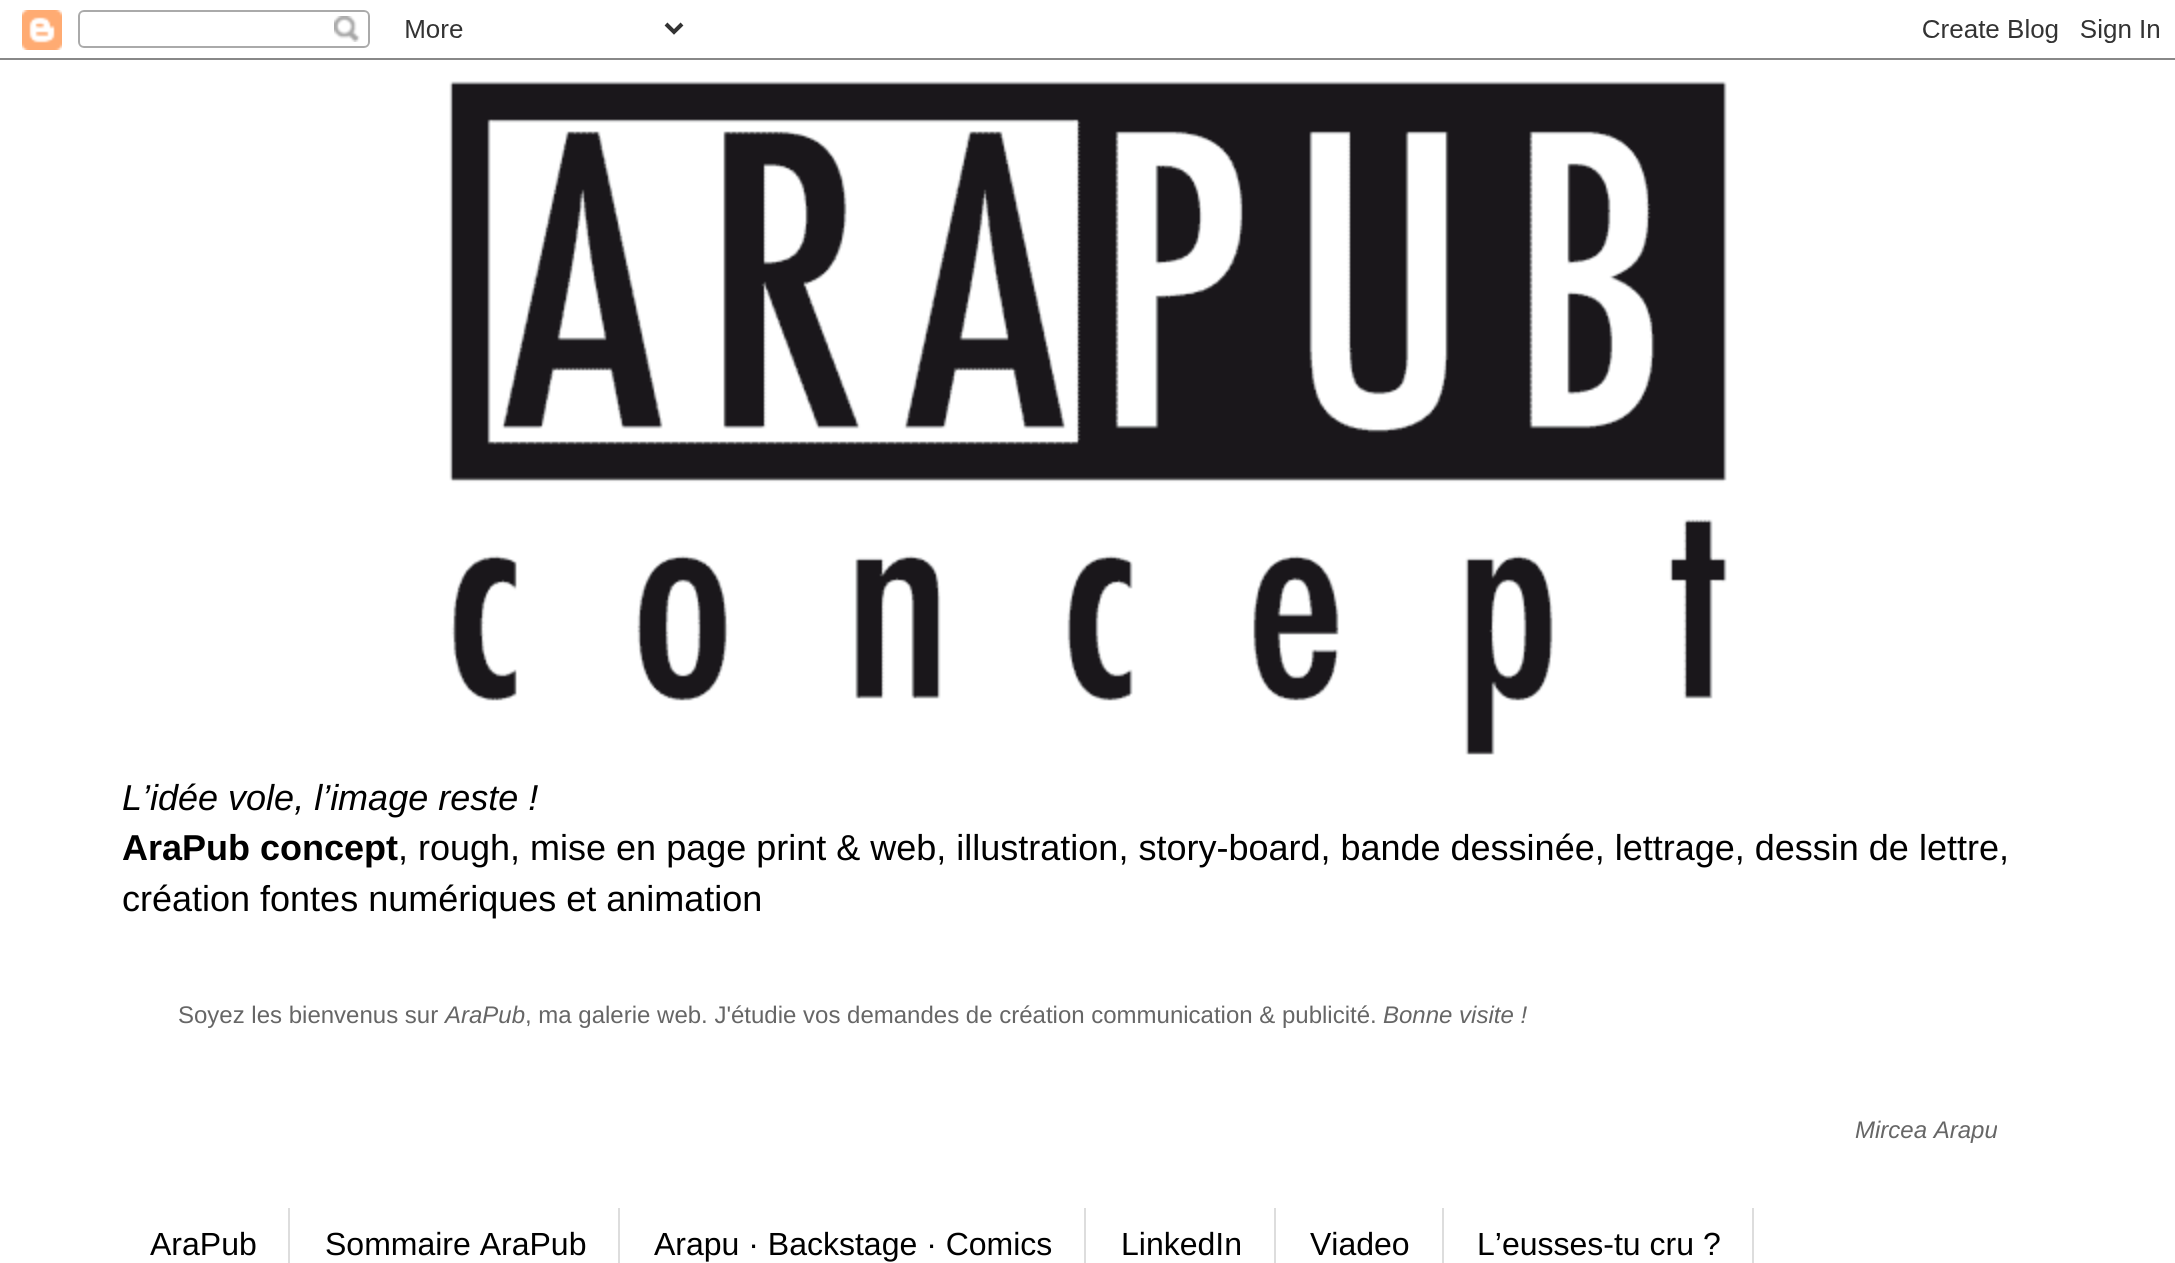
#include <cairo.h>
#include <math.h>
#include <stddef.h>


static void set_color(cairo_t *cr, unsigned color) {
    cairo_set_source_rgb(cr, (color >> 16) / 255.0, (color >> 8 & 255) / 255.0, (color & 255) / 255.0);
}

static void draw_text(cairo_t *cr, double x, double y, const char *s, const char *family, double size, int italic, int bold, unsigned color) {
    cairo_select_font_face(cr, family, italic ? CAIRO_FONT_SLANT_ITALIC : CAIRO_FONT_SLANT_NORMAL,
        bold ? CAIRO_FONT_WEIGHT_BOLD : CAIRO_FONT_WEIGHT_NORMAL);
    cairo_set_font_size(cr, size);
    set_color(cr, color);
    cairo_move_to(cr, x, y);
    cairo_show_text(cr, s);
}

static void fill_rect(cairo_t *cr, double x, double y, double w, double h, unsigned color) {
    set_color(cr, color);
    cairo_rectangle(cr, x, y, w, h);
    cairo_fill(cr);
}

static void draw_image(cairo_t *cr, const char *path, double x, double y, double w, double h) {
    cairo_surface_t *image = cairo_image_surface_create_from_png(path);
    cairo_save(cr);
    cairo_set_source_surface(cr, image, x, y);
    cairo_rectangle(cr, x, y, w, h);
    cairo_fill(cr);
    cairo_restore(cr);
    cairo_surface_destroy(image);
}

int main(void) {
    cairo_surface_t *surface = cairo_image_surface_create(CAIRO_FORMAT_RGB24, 2175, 1263);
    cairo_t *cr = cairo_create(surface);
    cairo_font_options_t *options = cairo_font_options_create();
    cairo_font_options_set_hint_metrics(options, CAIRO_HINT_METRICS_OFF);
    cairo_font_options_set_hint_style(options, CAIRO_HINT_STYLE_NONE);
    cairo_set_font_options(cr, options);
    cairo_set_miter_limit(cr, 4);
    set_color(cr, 0xFFFFFF);
    cairo_paint(cr);
    draw_image(cr, "assets/img1.png", 0, 10, 2175, 50);
    draw_image(cr, "assets/img2.png", 449, 81, 1278, 674);
    draw_text(cr, 122, 810, "L’idée vole, l’image reste !", "Liberation Sans", 36, 1, 0, 0x000000);
    draw_text(cr, 122, 860, "AraPub concept", "Liberation Sans", 36, 0, 1, 0x000000);
    draw_text(cr, 398, 860, ", rough, mise en page print & web, illustration, story-board, bande dessinée, lettrage, dessin de lettre,", "Liberation Sans", 36, 0, 0, 0x000000);
    draw_text(cr, 122, 911, "création fontes numériques et animation", "Liberation Sans", 36, 0, 0, 0x000000);
    draw_text(cr, 178, 1023, "Soyez les bienvenus sur", "Liberation Sans", 24, 0, 0, 0x666666);
    draw_text(cr, 445, 1023, "AraPub", "Liberation Sans", 24, 1, 0, 0x666666);
    draw_text(cr, 525, 1023, ", ma galerie web. J'étudie vos demandes de création communication & publicité.", "Liberation Sans", 24, 0, 0, 0x666666);
    draw_text(cr, 1383, 1023, "Bonne visite !", "Liberation Sans", 24, 1, 0, 0x666666);
    draw_text(cr, 1855, 1138, "Mircea Arapu", "Liberation Sans", 24, 1, 0, 0x666666);
    fill_rect(cr, 288, 1208, 2, 55, 0xDDDDDD);
    draw_text(cr, 150, 1255, "AraPub", "Liberation Sans", 32, 0, 0, 0x000000);
    fill_rect(cr, 618, 1208, 2, 55, 0xDDDDDD);
    draw_text(cr, 325, 1255, "Sommaire AraPub", "Liberation Sans", 32, 0, 0, 0x000000);
    fill_rect(cr, 1084, 1208, 2, 55, 0xDDDDDD);
    draw_text(cr, 654, 1255, "Arapu · Backstage · Comics", "Liberation Sans", 32, 0, 0, 0x000000);
    fill_rect(cr, 1274, 1208, 2, 55, 0xDDDDDD);
    draw_text(cr, 1121, 1255, "LinkedIn", "Liberation Sans", 32, 0, 0, 0x000000);
    fill_rect(cr, 1442, 1208, 2, 55, 0xDDDDDD);
    draw_text(cr, 1310, 1255, "Viadeo", "Liberation Sans", 32, 0, 0, 0x000000);
    fill_rect(cr, 1752, 1208, 2, 55, 0xDDDDDD);
    draw_text(cr, 1477, 1255, "L’eusses-tu cru ?", "Liberation Sans", 32, 0, 0, 0x000000);
    cairo_surface_write_to_png(surface, "output.png");
    cairo_font_options_destroy(options);
    cairo_destroy(cr);
    cairo_surface_destroy(surface);
    return 0;
}
